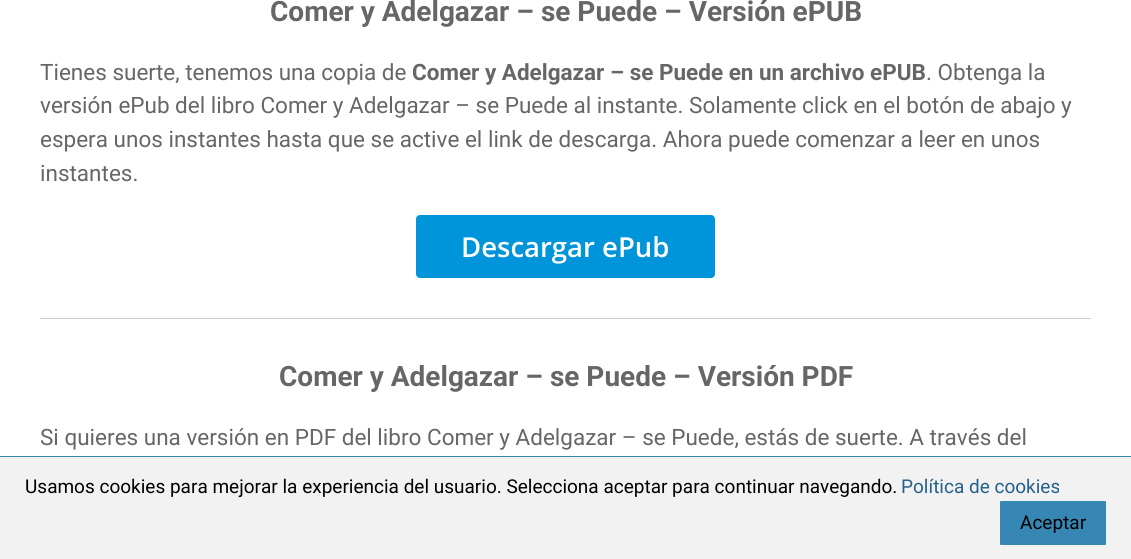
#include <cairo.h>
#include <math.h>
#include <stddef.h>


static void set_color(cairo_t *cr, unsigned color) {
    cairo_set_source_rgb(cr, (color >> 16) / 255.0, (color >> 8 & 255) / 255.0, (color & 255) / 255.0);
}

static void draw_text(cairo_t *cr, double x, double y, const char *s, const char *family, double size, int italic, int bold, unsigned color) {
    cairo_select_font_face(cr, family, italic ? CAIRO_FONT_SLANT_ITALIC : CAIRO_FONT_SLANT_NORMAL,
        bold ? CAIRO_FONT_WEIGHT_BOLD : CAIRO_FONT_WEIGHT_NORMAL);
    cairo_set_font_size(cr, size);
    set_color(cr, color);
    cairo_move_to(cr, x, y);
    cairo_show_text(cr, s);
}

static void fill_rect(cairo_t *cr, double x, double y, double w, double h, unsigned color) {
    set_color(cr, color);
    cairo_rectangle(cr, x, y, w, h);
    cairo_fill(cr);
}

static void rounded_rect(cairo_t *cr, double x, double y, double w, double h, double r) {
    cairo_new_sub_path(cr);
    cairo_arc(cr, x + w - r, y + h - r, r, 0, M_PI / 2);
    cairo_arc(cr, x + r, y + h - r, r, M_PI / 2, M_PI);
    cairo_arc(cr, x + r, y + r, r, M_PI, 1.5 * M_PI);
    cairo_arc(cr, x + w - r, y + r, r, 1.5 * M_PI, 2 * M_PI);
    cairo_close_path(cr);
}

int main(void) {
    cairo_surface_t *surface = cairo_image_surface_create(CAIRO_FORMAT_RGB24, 1131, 559);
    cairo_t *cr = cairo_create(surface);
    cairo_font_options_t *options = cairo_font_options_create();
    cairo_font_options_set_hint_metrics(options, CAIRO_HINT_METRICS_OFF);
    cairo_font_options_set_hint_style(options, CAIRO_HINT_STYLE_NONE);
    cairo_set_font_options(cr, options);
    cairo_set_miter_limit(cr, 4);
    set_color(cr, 0xFFFFFF);
    cairo_paint(cr);
    draw_text(cr, 270, 21, "Comer y Adelgazar – se Puede – Versión ePUB", "Roboto", 28, 0, 1, 0x666666);
    draw_text(cr, 40, 80, "Tienes suerte, tenemos una copia de", "Roboto", 22.5, 0, 0, 0x666666);
    draw_text(cr, 412, 80, "Comer y Adelgazar – se Puede en un archivo ePUB", "Roboto", 22.5, 0, 1, 0x666666);
    draw_text(cr, 926, 80, ". Obtenga la", "Roboto", 22.5, 0, 0, 0x666666);
    draw_text(cr, 40, 113, "versión ePub del libro Comer y Adelgazar – se Puede al instante. Solamente click en el botón de abajo y", "Roboto", 22.5, 0, 0, 0x666666);
    draw_text(cr, 40, 147, "espera unos instantes hasta que se active el link de descarga. Ahora puede comenzar a leer en unos", "Roboto", 22.5, 0, 0, 0x666666);
    draw_text(cr, 40, 181, "instantes.", "Roboto", 22.5, 0, 0, 0x666666);
    set_color(cr, 0x0095DA);
    rounded_rect(cr, 416, 215, 299, 63, 4);
    cairo_fill(cr);
    draw_text(cr, 461, 257, "Descargar ePub", "Open Sans SemiBold", 27.5, 0, 0, 0xFFFFFF);
    fill_rect(cr, 40, 318, 1051, 1, 0xCCCCCC);
    draw_text(cr, 279, 386, "Comer y Adelgazar – se Puede – Versión PDF", "Roboto", 28, 0, 1, 0x666666);
    draw_text(cr, 40, 445, "Si quieres una versión en PDF del libro Comer y Adelgazar – se Puede, estás de suerte. A través del", "Roboto", 22.5, 0, 0, 0x666666);
    fill_rect(cr, 0, 457, 1131, 102, 0xF2F2F2);
    fill_rect(cr, 0, 456, 1131, 1, 0x3787B5);
    draw_text(cr, 25, 493, "Usamos cookies para mejorar la experiencia del usuario. Selecciona aceptar para continuar navegando.", "Roboto", 19, 0, 0, 0x000000);
    draw_text(cr, 901, 493, "Política de cookies", "Roboto", 19, 0, 0, 0x23618A);
    set_color(cr, 0x3787B5);
    rounded_rect(cr, 1000, 501, 106, 44, 1);
    cairo_fill(cr);
    draw_text(cr, 1020, 529, "Aceptar", "Roboto", 19, 0, 0, 0x000000);
    cairo_surface_write_to_png(surface, "output.png");
    cairo_font_options_destroy(options);
    cairo_destroy(cr);
    cairo_surface_destroy(surface);
    return 0;
}
